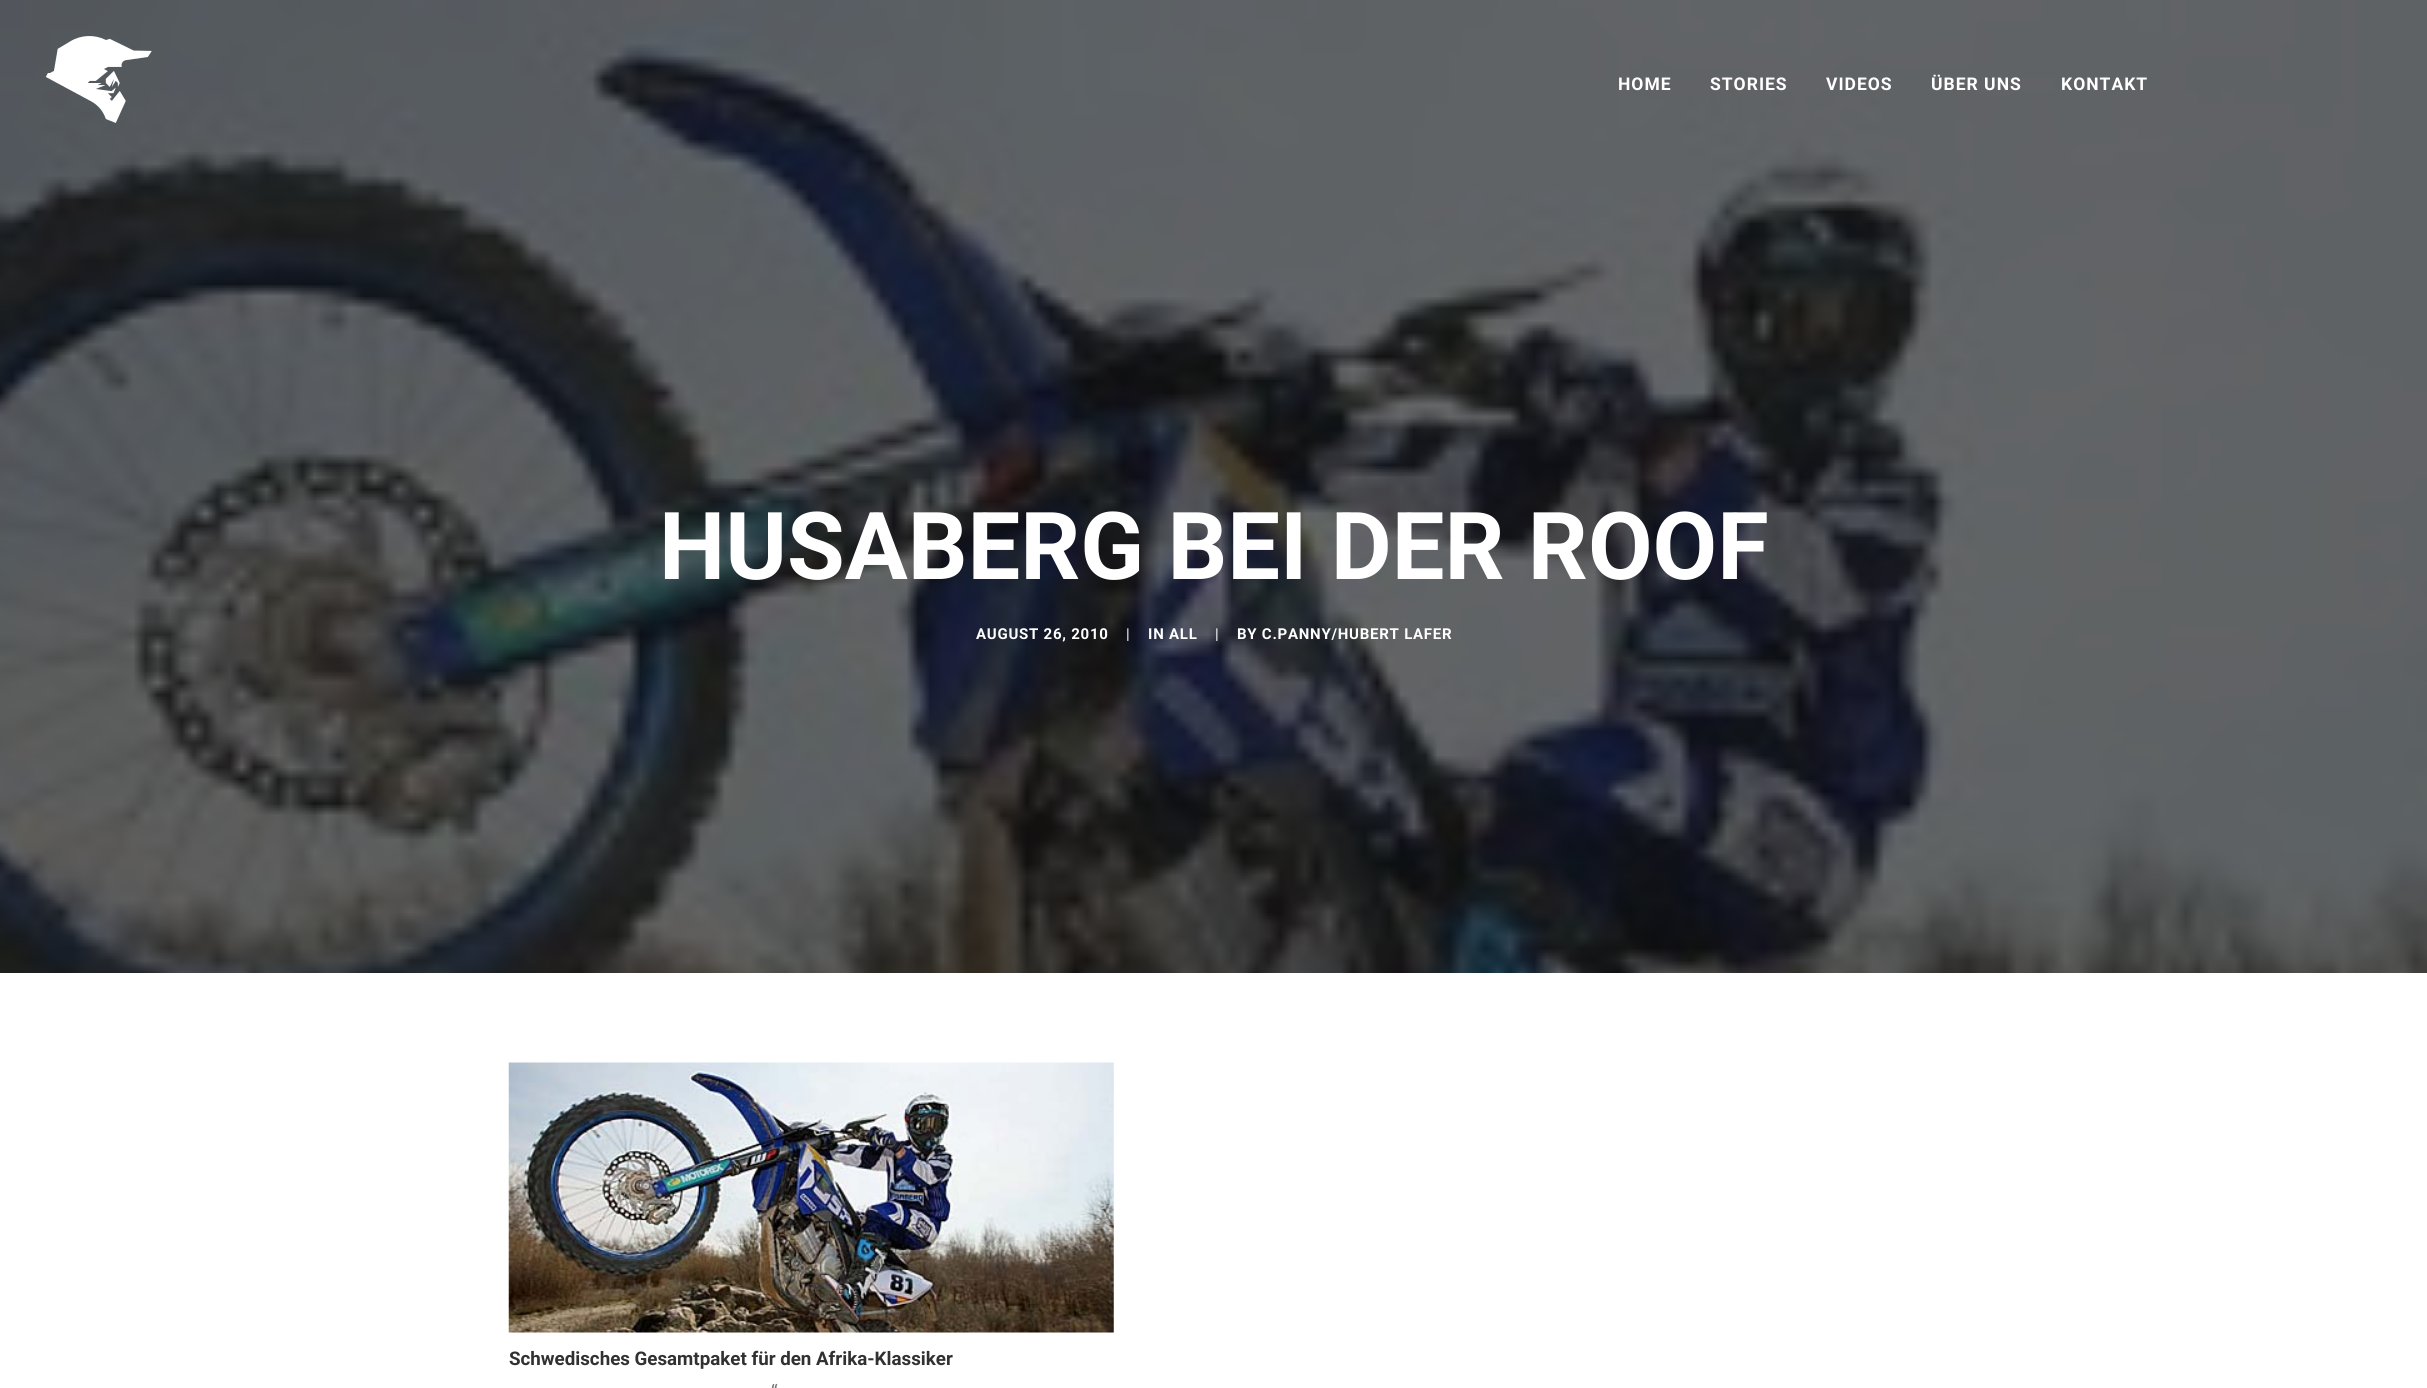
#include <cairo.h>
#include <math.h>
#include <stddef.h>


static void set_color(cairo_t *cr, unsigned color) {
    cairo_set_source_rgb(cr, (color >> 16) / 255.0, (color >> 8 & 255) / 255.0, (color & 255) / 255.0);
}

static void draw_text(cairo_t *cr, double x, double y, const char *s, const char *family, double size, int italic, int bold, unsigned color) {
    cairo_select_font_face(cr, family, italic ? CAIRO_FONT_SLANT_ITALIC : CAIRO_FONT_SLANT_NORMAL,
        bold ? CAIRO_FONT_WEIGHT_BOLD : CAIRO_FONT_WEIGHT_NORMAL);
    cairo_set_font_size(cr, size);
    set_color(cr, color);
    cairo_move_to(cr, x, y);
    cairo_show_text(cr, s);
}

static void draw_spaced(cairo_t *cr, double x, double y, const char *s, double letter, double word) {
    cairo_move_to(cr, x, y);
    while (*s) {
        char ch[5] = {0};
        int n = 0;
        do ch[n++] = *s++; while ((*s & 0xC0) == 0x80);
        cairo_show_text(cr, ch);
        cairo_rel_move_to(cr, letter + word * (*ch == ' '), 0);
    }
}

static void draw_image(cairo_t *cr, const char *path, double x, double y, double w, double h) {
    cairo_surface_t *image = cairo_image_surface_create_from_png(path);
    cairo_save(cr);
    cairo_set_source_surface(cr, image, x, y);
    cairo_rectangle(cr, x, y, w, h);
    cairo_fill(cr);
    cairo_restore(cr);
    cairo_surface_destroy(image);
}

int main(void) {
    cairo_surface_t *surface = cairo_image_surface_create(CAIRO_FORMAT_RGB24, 2427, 1388);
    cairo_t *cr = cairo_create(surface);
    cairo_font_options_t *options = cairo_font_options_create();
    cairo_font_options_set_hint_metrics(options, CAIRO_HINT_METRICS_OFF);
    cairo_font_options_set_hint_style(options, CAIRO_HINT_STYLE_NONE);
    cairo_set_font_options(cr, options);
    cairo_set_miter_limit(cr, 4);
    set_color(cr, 0xFFFFFF);
    cairo_paint(cr);
    draw_image(cr, "assets/img2.png", 0, 0, 2427, 973);
    draw_image(cr, "assets/img1.png", 45, 36, 107, 87);
    cairo_select_font_face(cr, "Roboto", CAIRO_FONT_SLANT_NORMAL, CAIRO_FONT_WEIGHT_BOLD);
    cairo_set_font_size(cr, 17.5);
    set_color(cr, 0xFFFFFF);
    draw_spaced(cr, 1618, 90, "HOME", 1, 0);
    draw_spaced(cr, 1710, 90, "STORIES", 1, 0);
    draw_spaced(cr, 1826, 90, "VIDEOS", 1, 0);
    draw_spaced(cr, 1931, 90, "ÜBER UNS", 1, 0);
    draw_spaced(cr, 2061, 90, "KONTAKT", 1, 0);
    draw_text(cr, 659, 579, "HUSABERG BEI DER ROOF", "Roboto", 93.75, 0, 1, 0xFFFFFF);
    cairo_set_font_size(cr, 15);
    draw_spaced(cr, 976, 639, "AUGUST 26, 2010", 0.75, 0);
    cairo_select_font_face(cr, "Roboto", CAIRO_FONT_SLANT_NORMAL, CAIRO_FONT_WEIGHT_NORMAL);
    draw_spaced(cr, 1126, 639, "|", 0.75, 0);
    cairo_select_font_face(cr, "Roboto", CAIRO_FONT_SLANT_NORMAL, CAIRO_FONT_WEIGHT_BOLD);
    draw_spaced(cr, 1148, 639, "IN ALL", 0.75, 0);
    cairo_select_font_face(cr, "Roboto", CAIRO_FONT_SLANT_NORMAL, CAIRO_FONT_WEIGHT_NORMAL);
    draw_spaced(cr, 1215, 639, "|", 0.75, 0);
    cairo_select_font_face(cr, "Roboto", CAIRO_FONT_SLANT_NORMAL, CAIRO_FONT_WEIGHT_BOLD);
    draw_spaced(cr, 1237, 639, "BY C.PANNY/HUBERT LAFER", 0.75, 0);
    draw_image(cr, "assets/img3.png", 508, 1062, 606, 271);
    draw_text(cr, 509, 1365, "Schwedisches Gesamtpaket für den Afrika-Klassiker", "Roboto", 18.75, 0, 1, 0x303133);
    draw_text(cr, 771, 1398, "“", "Roboto", 18.75, 0, 0, 0x777777);
    cairo_surface_write_to_png(surface, "output.png");
    cairo_font_options_destroy(options);
    cairo_destroy(cr);
    cairo_surface_destroy(surface);
    return 0;
}
